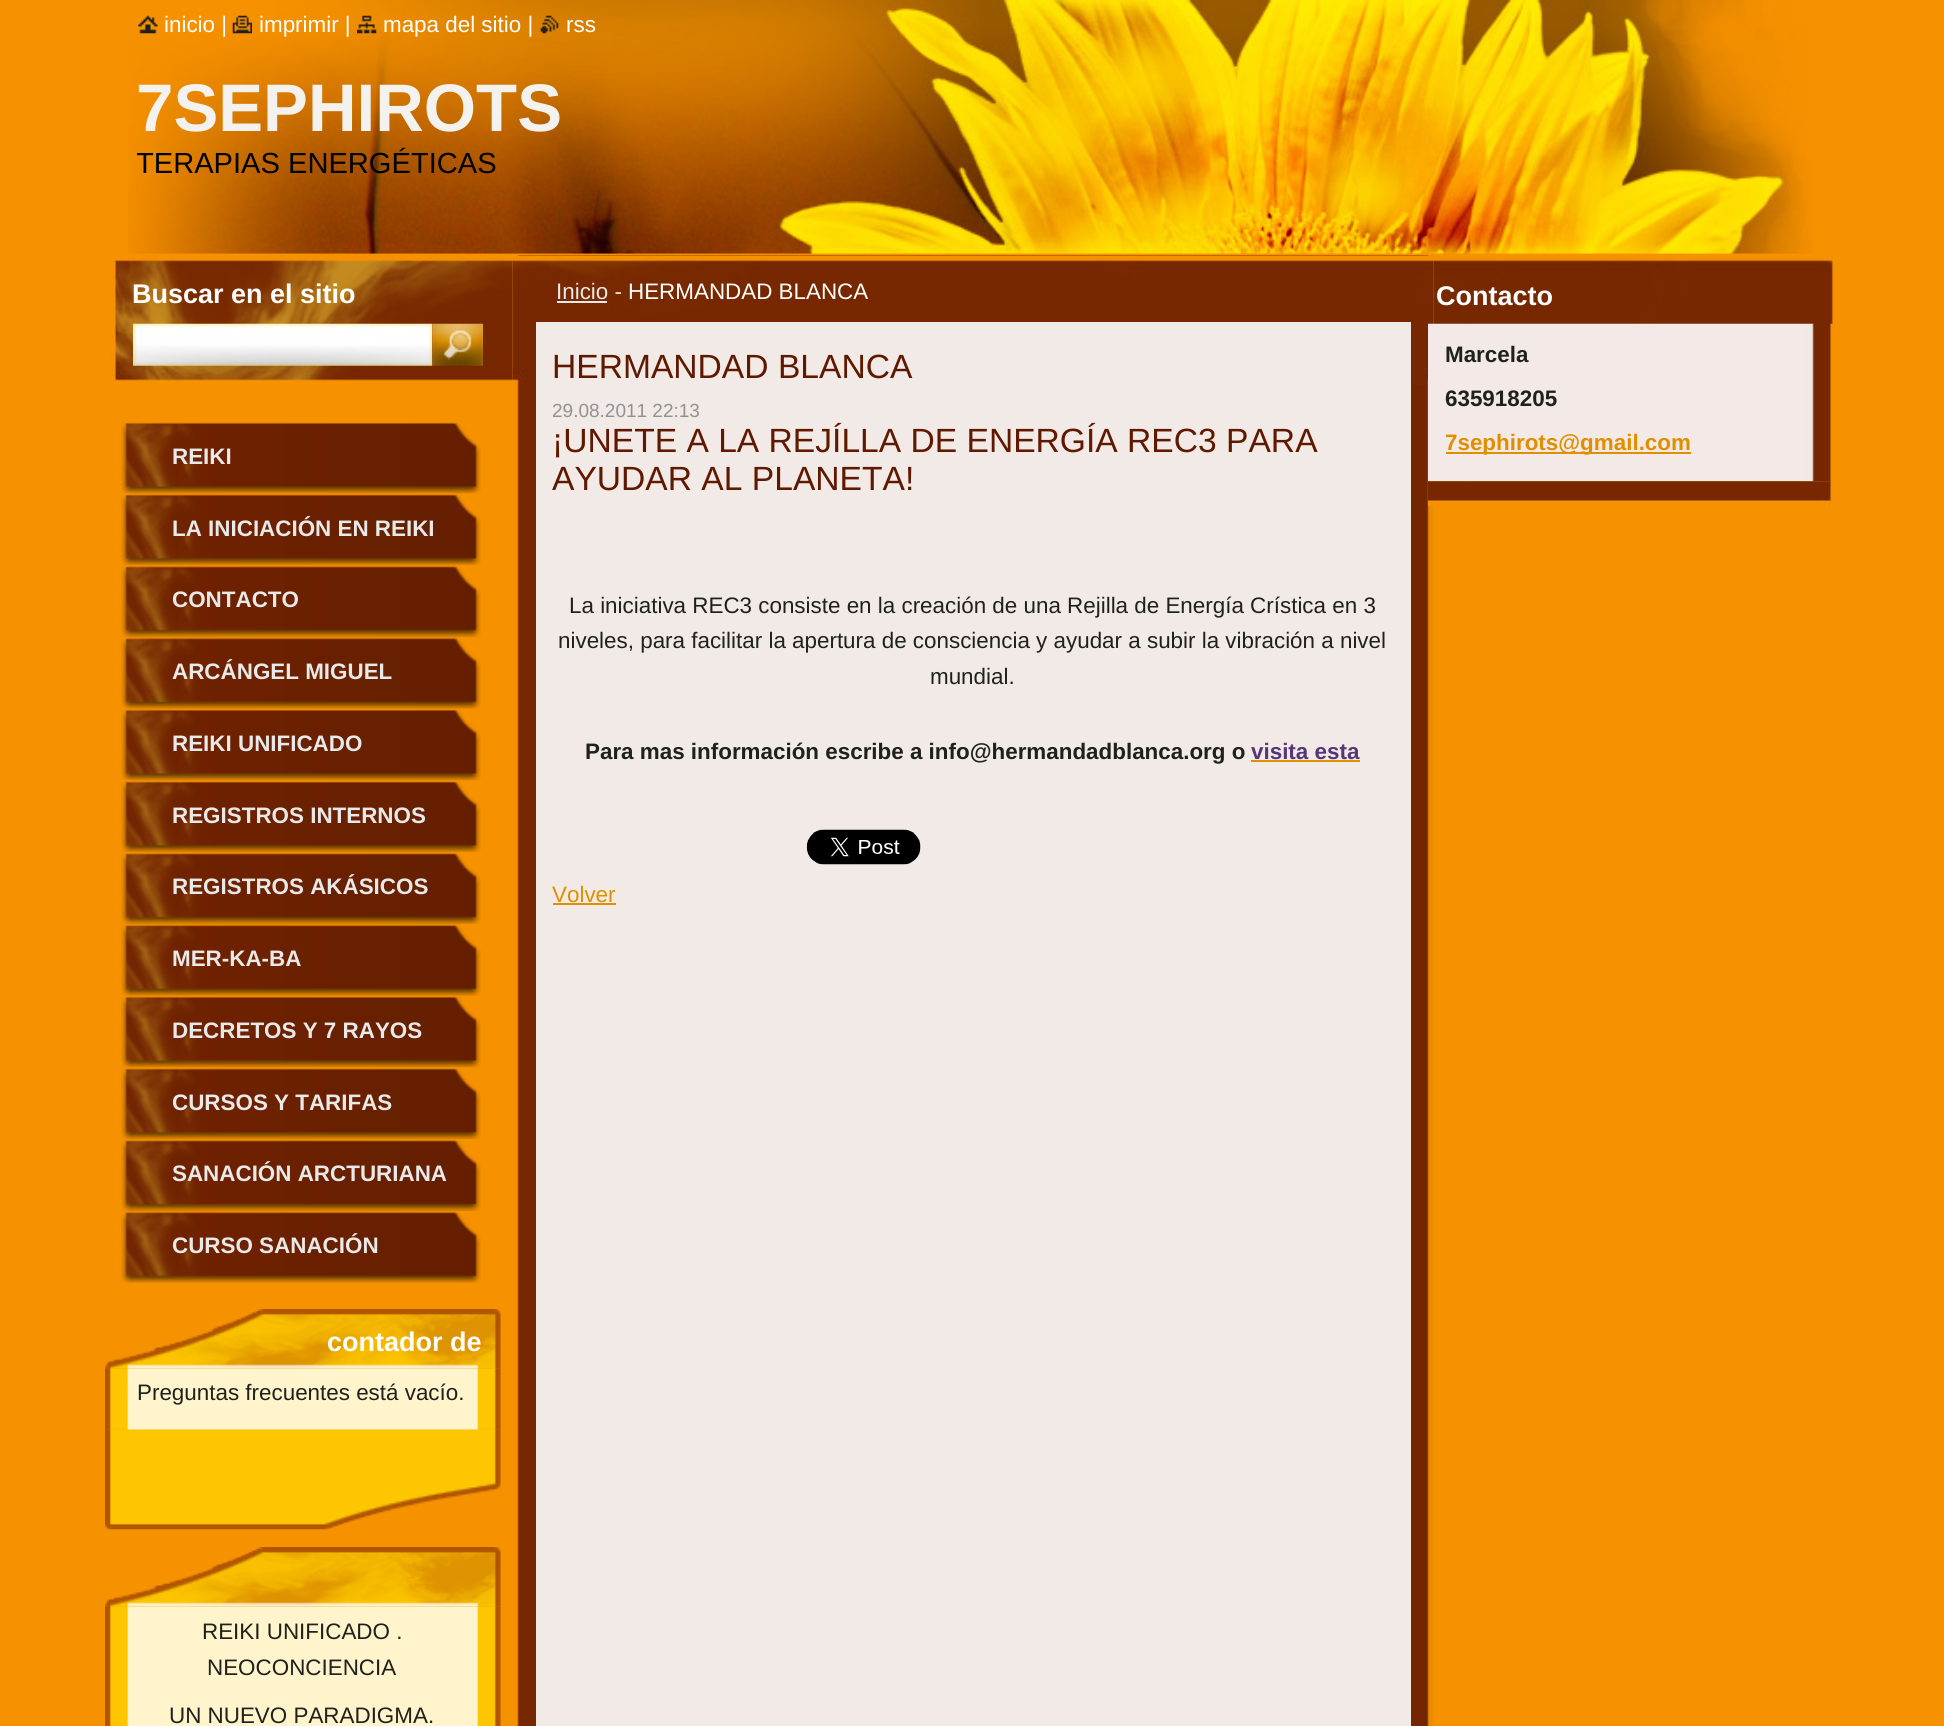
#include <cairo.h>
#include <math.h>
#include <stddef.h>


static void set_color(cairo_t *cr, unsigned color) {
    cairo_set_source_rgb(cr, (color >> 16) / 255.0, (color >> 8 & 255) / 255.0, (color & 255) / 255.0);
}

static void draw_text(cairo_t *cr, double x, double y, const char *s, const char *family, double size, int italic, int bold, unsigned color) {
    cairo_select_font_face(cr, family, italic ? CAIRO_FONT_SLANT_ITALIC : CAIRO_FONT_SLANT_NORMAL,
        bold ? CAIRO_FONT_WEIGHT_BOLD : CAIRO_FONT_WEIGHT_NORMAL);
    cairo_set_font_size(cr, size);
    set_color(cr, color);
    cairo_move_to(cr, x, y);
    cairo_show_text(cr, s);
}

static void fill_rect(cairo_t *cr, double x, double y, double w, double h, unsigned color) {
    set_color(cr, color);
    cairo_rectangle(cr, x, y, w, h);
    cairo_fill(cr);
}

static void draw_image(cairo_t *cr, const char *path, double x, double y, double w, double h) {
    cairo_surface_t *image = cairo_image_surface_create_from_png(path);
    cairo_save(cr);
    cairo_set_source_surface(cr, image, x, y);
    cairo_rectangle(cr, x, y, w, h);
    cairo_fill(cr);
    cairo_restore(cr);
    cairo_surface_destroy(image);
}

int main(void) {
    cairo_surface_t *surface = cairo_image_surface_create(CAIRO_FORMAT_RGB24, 1944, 1726);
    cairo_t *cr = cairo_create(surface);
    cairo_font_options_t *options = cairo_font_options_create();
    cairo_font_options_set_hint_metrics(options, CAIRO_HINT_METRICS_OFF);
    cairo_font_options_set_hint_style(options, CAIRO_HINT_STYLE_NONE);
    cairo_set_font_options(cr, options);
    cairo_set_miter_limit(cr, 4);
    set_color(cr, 0xF69100);
    cairo_paint(cr);
    draw_image(cr, "assets/img5.png", 128, 0, 1684, 254);
    draw_image(cr, "assets/img1.png", 138, 15, 20, 19);
    draw_text(cr, 164, 32, "inicio |", "Liberation Sans", 22.4, 0, 0, 0xFFFFFF);
    draw_image(cr, "assets/img2.png", 232, 15, 20, 19);
    draw_text(cr, 259, 32, "imprimir |", "Liberation Sans", 22.4, 0, 0, 0xFFFFFF);
    draw_image(cr, "assets/img3.png", 357, 15, 20, 19);
    draw_text(cr, 383, 32, "mapa del sitio |", "Liberation Sans", 22.4, 0, 0, 0xFFFFFF);
    draw_image(cr, "assets/img4.png", 540, 15, 19, 19);
    draw_text(cr, 566, 32, "rss", "Liberation Sans", 22.4, 0, 0, 0xFFFFFF);
    draw_text(cr, 136, 131, "7SEPHIROTS", "Liberation Sans", 67.25, 0, 1, 0xF3F2EF);
    cairo_save(cr);
    cairo_rectangle(cr, 137, 147, 1050, 35);
    cairo_clip(cr);
    draw_text(cr, 136, 173, "TERAPIAS ENERGÉTICAS", "Liberation Sans", 29.1, 0, 0, 0x000000);
    cairo_restore(cr);
    draw_image(cr, "assets/img6.png", 110, 255, 1724, 130);
    draw_text(cr, 132, 303, "Buscar en el sitio", "Liberation Sans", 27, 0, 1, 0xFFFFFF);
    draw_image(cr, "assets/img7.png", 133, 323, 300, 43);
    draw_image(cr, "assets/img8.png", 432, 323, 51, 43);
    draw_image(cr, "assets/img9.png", 512, 255, 922, 1471);
    draw_image(cr, "assets/img10.png", 513, 255, 920, 130);
    draw_text(cr, 556, 299, "Inicio -", "Liberation Sans", 22.4, 0, 0, 0xE9E9E9);
    fill_rect(cr, 557, 301, 50, 2, 0xE9E9E9);
    draw_text(cr, 628, 299, "HERMANDAD BLANCA", "Liberation Sans", 22.4, 0, 0, 0xFFFFFF);
    fill_rect(cr, 536, 322, 875, 1404, 0xF2EAE6);
    draw_text(cr, 552, 378, "HERMANDAD BLANCA", "Liberation Sans", 33.6, 0, 0, 0x5F1900);
    draw_text(cr, 552, 417, "29.08.2011 22:13", "Liberation Sans", 19, 0, 0, 0x919192);
    draw_text(cr, 552, 452, "¡UNETE A LA REJÍLLA DE ENERGÍA REC3 PARA", "Liberation Sans", 33.6, 0, 0, 0x5F1900);
    draw_text(cr, 552, 490, "AYUDAR AL PLANETA!", "Liberation Sans", 33.6, 0, 0, 0x5F1900);
    draw_text(cr, 569, 613, "La iniciativa REC3 consiste en la creación de una Rejilla de Energía Crística en 3", "Liberation Sans", 22.4, 0, 0, 0x1F221C);
    draw_text(cr, 558, 648, "niveles, para facilitar la apertura de consciencia y ayudar a subir la vibración a nivel", "Liberation Sans", 22.4, 0, 0, 0x1F221C);
    draw_text(cr, 930, 684, "mundial.", "Liberation Sans", 22.4, 0, 0, 0x1F221C);
    draw_text(cr, 585, 759, "Para mas información escribe a info@hermandadblanca.org o", "Liberation Sans", 22.4, 0, 1, 0x1F221C);
    draw_text(cr, 1251, 759, "visita esta", "Liberation Sans", 22.4, 0, 1, 0x563677);
    fill_rect(cr, 1251, 760, 109, 2, 0xDF8F00);
    draw_image(cr, "assets/img11.png", 806, 829, 115, 36);
    draw_text(cr, 552, 902, "Volver", "Liberation Sans", 22.4, 0, 0, 0xDF8F00);
    fill_rect(cr, 553, 903, 63, 2, 0xDF8F00);
    draw_text(cr, 1436, 305, "Contacto", "Liberation Sans", 27, 0, 1, 0xFFFFFF);
    draw_image(cr, "assets/img12.png", 1428, 323, 406, 159);
    draw_text(cr, 1445, 362, "Marcela", "Liberation Sans", 22.4, 0, 1, 0x1F221C);
    draw_text(cr, 1445, 406, "635918205", "Liberation Sans", 22.4, 0, 1, 0x1F221C);
    fill_rect(cr, 1446, 452, 245, 2, 0xDF8F00);
    draw_text(cr, 1445, 450, "7sephirots@gmail.com", "Liberation Sans", 22.4, 0, 1, 0xDF8F00);
    draw_image(cr, "assets/img13.png", 1428, 481, 406, 25);
    draw_image(cr, "assets/img14.png", 121, 422, 360, 72);
    draw_text(cr, 172, 464, "REIKI", "Liberation Sans", 22.4, 0, 1, 0xE9E9E9);
    draw_image(cr, "assets/img15.png", 121, 494, 360, 71);
    draw_text(cr, 172, 536, "LA INICIACIÓN EN REIKI", "Liberation Sans", 22.4, 0, 1, 0xE9E9E9);
    draw_image(cr, "assets/img16.png", 121, 565, 360, 72);
    draw_text(cr, 172, 607, "CONTACTO", "Liberation Sans", 22.4, 0, 1, 0xE9E9E9);
    draw_image(cr, "assets/img17.png", 121, 637, 360, 72);
    draw_text(cr, 172, 679, "ARCÁNGEL MIGUEL", "Liberation Sans", 22.4, 0, 1, 0xE9E9E9);
    draw_image(cr, "assets/img14.png", 121, 709, 360, 72);
    draw_text(cr, 172, 751, "REIKI UNIFICADO", "Liberation Sans", 22.4, 0, 1, 0xE9E9E9);
    draw_image(cr, "assets/img15.png", 121, 781, 360, 71);
    draw_text(cr, 172, 823, "REGISTROS INTERNOS", "Liberation Sans", 22.4, 0, 1, 0xE9E9E9);
    draw_image(cr, "assets/img16.png", 121, 852, 360, 72);
    draw_text(cr, 172, 894, "REGISTROS AKÁSICOS", "Liberation Sans", 22.4, 0, 1, 0xE9E9E9);
    draw_image(cr, "assets/img17.png", 121, 924, 360, 72);
    draw_text(cr, 172, 966, "MER-KA-BA", "Liberation Sans", 22.4, 0, 1, 0xE9E9E9);
    draw_image(cr, "assets/img14.png", 121, 996, 360, 72);
    draw_text(cr, 172, 1038, "DECRETOS Y 7 RAYOS", "Liberation Sans", 22.4, 0, 1, 0xE9E9E9);
    draw_image(cr, "assets/img15.png", 121, 1068, 360, 71);
    draw_text(cr, 172, 1110, "CURSOS Y TARIFAS", "Liberation Sans", 22.4, 0, 1, 0xE9E9E9);
    draw_image(cr, "assets/img16.png", 121, 1139, 360, 72);
    draw_text(cr, 172, 1181, "SANACIÓN ARCTURIANA", "Liberation Sans", 22.4, 0, 1, 0xE9E9E9);
    draw_image(cr, "assets/img17.png", 121, 1211, 360, 72);
    draw_text(cr, 172, 1253, "CURSO SANACIÓN", "Liberation Sans", 22.4, 0, 1, 0xE9E9E9);
    draw_image(cr, "assets/img18.png", 105, 1309, 396, 60);
    draw_text(cr, 327, 1351, "contador de", "Liberation Sans", 27, 0, 1, 0xFFFFFF);
    draw_image(cr, "assets/img19.png", 105, 1368, 396, 62);
    draw_text(cr, 137, 1400, "Preguntas frecuentes está vacío.", "Liberation Sans", 22.4, 0, 0, 0x1F221C);
    draw_image(cr, "assets/img20.png", 105, 1429, 396, 101);
    draw_image(cr, "assets/img18.png", 105, 1547, 396, 60);
    draw_image(cr, "assets/img21.png", 105, 1606, 396, 120);
    draw_text(cr, 202, 1639, "REIKI UNIFICADO .", "Liberation Sans", 22.4, 0, 0, 0x1F221C);
    draw_text(cr, 207, 1675, "NEOCONCIENCIA", "Liberation Sans", 22.4, 0, 0, 0x1F221C);
    draw_text(cr, 169, 1723, "UN NUEVO PARADIGMA.", "Liberation Sans", 22.4, 0, 0, 0x1F221C);
    cairo_surface_write_to_png(surface, "output.png");
    cairo_font_options_destroy(options);
    cairo_destroy(cr);
    cairo_surface_destroy(surface);
    return 0;
}
